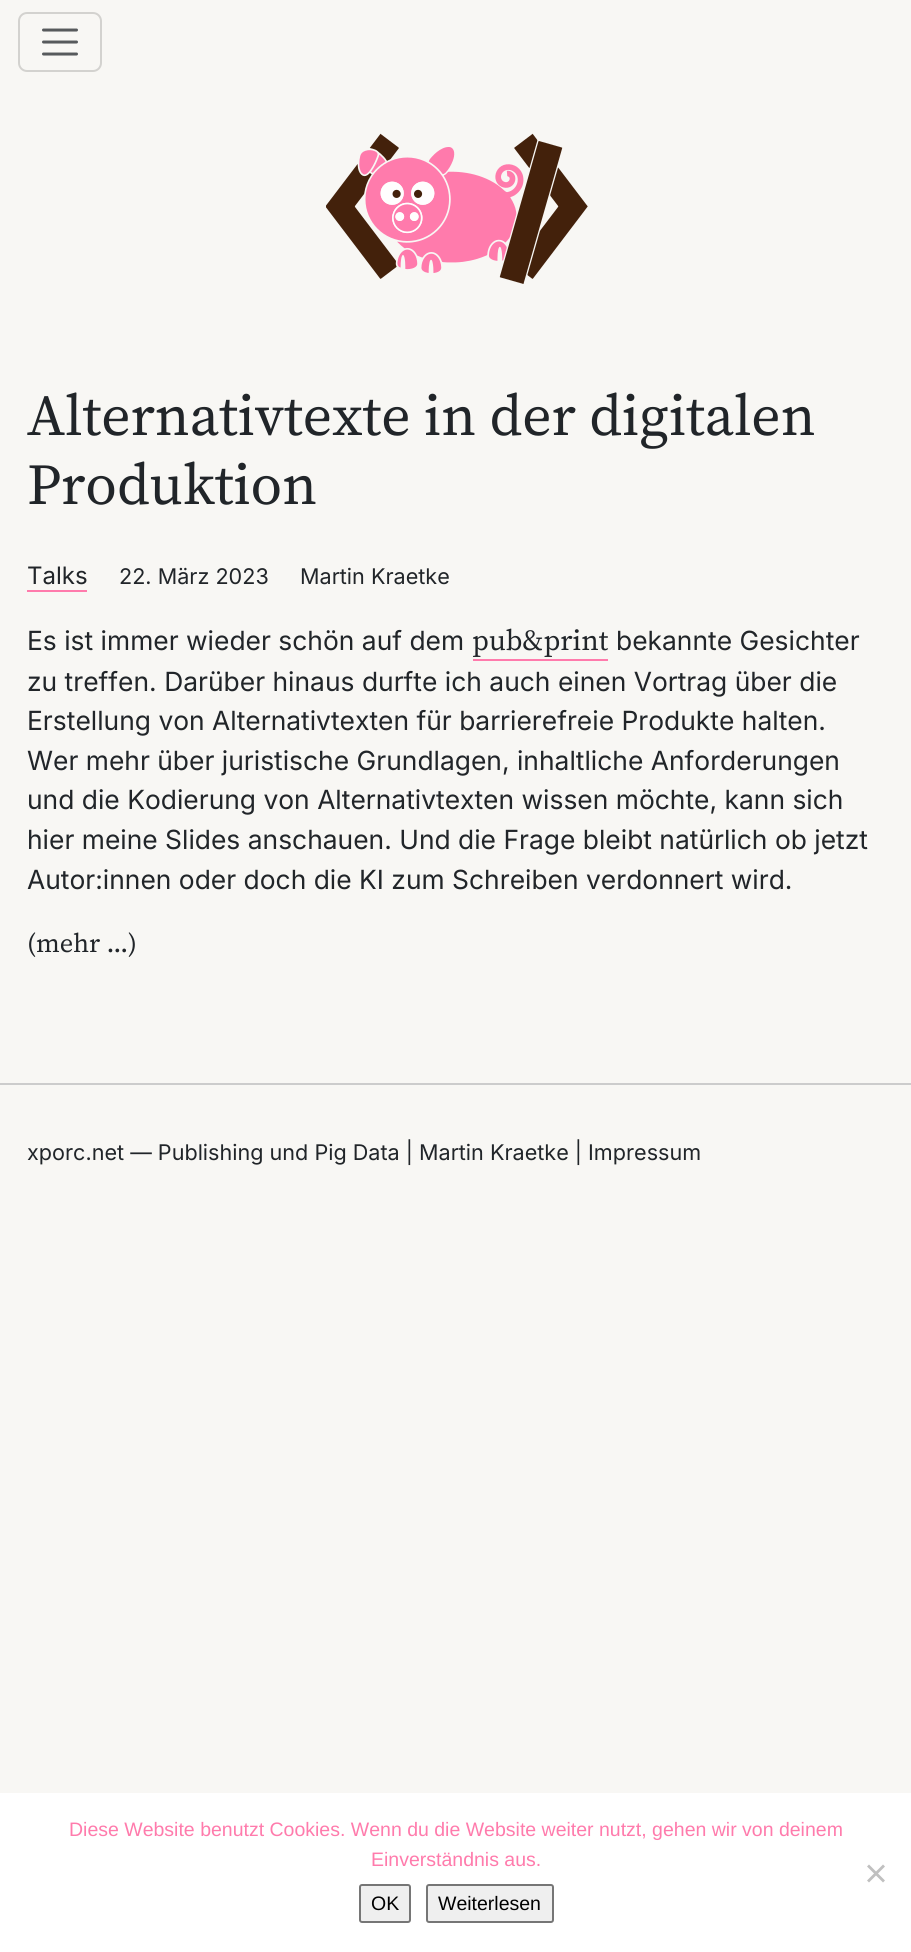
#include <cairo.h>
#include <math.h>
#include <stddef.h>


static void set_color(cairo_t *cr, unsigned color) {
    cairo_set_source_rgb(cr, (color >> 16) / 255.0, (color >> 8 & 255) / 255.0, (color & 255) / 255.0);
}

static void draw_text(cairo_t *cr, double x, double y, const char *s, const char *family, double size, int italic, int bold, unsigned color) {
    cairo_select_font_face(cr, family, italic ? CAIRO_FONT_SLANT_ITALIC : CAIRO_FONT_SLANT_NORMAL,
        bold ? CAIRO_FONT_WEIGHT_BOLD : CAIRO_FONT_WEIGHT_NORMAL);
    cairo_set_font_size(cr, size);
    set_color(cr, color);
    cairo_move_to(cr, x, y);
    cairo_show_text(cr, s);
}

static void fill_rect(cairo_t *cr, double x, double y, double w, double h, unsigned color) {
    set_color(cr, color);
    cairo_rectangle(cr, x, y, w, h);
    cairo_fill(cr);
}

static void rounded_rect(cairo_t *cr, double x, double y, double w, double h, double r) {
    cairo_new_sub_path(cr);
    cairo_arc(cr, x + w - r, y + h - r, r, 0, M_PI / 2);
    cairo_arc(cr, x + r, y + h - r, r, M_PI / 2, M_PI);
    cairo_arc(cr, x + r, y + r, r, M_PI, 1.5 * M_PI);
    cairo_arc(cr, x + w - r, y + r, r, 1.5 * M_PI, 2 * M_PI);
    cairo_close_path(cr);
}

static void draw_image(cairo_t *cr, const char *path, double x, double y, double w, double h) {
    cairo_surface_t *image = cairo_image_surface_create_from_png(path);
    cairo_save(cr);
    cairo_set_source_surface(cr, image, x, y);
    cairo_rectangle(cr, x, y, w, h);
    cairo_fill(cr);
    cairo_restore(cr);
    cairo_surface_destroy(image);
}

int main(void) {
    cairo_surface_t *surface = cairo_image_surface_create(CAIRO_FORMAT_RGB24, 911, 1952);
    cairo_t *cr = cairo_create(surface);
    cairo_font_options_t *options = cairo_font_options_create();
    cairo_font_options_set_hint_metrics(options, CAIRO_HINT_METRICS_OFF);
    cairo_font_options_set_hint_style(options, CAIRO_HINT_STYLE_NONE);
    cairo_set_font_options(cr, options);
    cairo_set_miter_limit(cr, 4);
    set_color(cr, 0xF8F7F4);
    cairo_paint(cr);
    rounded_rect(cr, 19, 13, 82, 58, 8);
    set_color(cr, 0xD3D2CF);
    cairo_stroke(cr);
    cairo_new_path(cr);
    cairo_move_to(cr, 43.5, 30);
    cairo_line_to(cr, 76.5, 30);
    cairo_move_to(cr, 43.5, 42);
    cairo_line_to(cr, 76.5, 42);
    cairo_move_to(cr, 43.5, 54);
    cairo_line_to(cr, 76.5, 54);
    set_color(cr, 0x575A5C);
    cairo_set_line_width(cr, 3);
    cairo_set_line_cap(cr, CAIRO_LINE_CAP_ROUND);
    cairo_stroke(cr);
    draw_image(cr, "assets/img1.png", 326, 133, 262, 151);
    draw_text(cr, 27, 435, "Alternativtexte in der digitalen", "Source Serif 4", 57.6, 0, 0, 0x212529);
    draw_text(cr, 27, 504, "Produktion", "Source Serif 4", 57.6, 0, 0, 0x212529);
    draw_text(cr, 27, 584, "Talks", "Inter", 24, 0, 0, 0x212529);
    fill_rect(cr, 27, 590, 60, 2, 0xFF7BAC);
    draw_text(cr, 119, 584, "22. März 2023", "Inter", 21.6, 0, 0, 0x212529);
    draw_text(cr, 300, 584, "Martin Kraetke", "Inter", 21.6, 0, 0, 0x212529);
    draw_text(cr, 27, 650, "Es ist immer wieder schön auf dem", "Inter", 26.4, 0, 0, 0x212529);
    draw_text(cr, 472, 650, "pub&print", "Source Serif 4", 29, 0, 0, 0x212529);
    fill_rect(cr, 473, 659, 135, 2, 0xFF7BAC);
    draw_text(cr, 616, 650, "bekannte Gesichter", "Inter", 26.4, 0, 0, 0x212529);
    draw_text(cr, 27, 691, "zu treffen. Darüber hinaus durfte ich auch einen Vortrag über die", "Inter", 26.4, 0, 0, 0x212529);
    draw_text(cr, 27, 730, "Erstellung von Alternativtexten für barrierefreie Produkte halten.", "Inter", 26.4, 0, 0, 0x212529);
    draw_text(cr, 27, 770, "Wer mehr über juristische Grundlagen, inhaltliche Anforderungen", "Inter", 26.4, 0, 0, 0x212529);
    draw_text(cr, 27, 809, "und die Kodierung von Alternativtexten wissen möchte, kann sich", "Inter", 26.4, 0, 0, 0x212529);
    draw_text(cr, 27, 849, "hier meine Slides anschauen. Und die Frage bleibt natürlich ob jetzt", "Inter", 26.4, 0, 0, 0x212529);
    draw_text(cr, 27, 889, "Autor:innen oder doch die KI zum Schreiben verdonnert wird.", "Inter", 26.4, 0, 0, 0x212529);
    draw_text(cr, 27, 952, "(mehr …)", "Source Serif 4", 26.4, 0, 0, 0x212529);
    fill_rect(cr, 0, 1083, 911, 2, 0xCCCCCC);
    draw_text(cr, 27, 1160, "xporc.net — Publishing und Pig Data | Martin Kraetke |", "Inter", 21.6, 0, 0, 0x212529);
    draw_text(cr, 588, 1160, "Impressum", "Inter", 21.6, 0, 0, 0x212529);
    fill_rect(cr, 0, 1793, 911, 159, 0xFFFFFF);
    draw_text(cr, 69, 1836, "Diese Website benutzt Cookies. Wenn du die Website weiter nutzt, gehen wir von deinem", "Liberation Sans", 19.5, 0, 0, 0xFF7BAC);
    draw_text(cr, 371, 1866, "Einverständnis aus.", "Liberation Sans", 19.5, 0, 0, 0xFF7BAC);
    set_color(cr, 0xC0C0C0);
    cairo_new_path(cr);
    cairo_move_to(cr, 883, 1864.5);
    cairo_line_to(cr, 885, 1866.5);
    cairo_line_to(cr, 869, 1882.5);
    cairo_line_to(cr, 867, 1880.5);
    cairo_close_path(cr);
    cairo_fill(cr);
    cairo_new_path(cr);
    cairo_move_to(cr, 867, 1866.5);
    cairo_line_to(cr, 869, 1864.5);
    cairo_line_to(cr, 885, 1880.5);
    cairo_line_to(cr, 883, 1882.5);
    cairo_close_path(cr);
    cairo_fill(cr);
    set_color(cr, 0xEFEFEF);
    rounded_rect(cr, 360, 1885, 50, 37, 2);
    cairo_fill_preserve(cr);
    set_color(cr, 0x767676);
    cairo_set_line_width(cr, 2);
    cairo_set_line_cap(cr, CAIRO_LINE_CAP_BUTT);
    cairo_stroke(cr);
    draw_text(cr, 371, 1910, "OK", "Liberation Sans", 19.5, 0, 0, 0x000000);
    set_color(cr, 0xEFEFEF);
    rounded_rect(cr, 427, 1885, 126, 37, 2);
    cairo_fill_preserve(cr);
    set_color(cr, 0x767676);
    cairo_stroke(cr);
    draw_text(cr, 438, 1910, "Weiterlesen", "Liberation Sans", 19.5, 0, 0, 0x000000);
    cairo_surface_write_to_png(surface, "output.png");
    cairo_font_options_destroy(options);
    cairo_destroy(cr);
    cairo_surface_destroy(surface);
    return 0;
}
